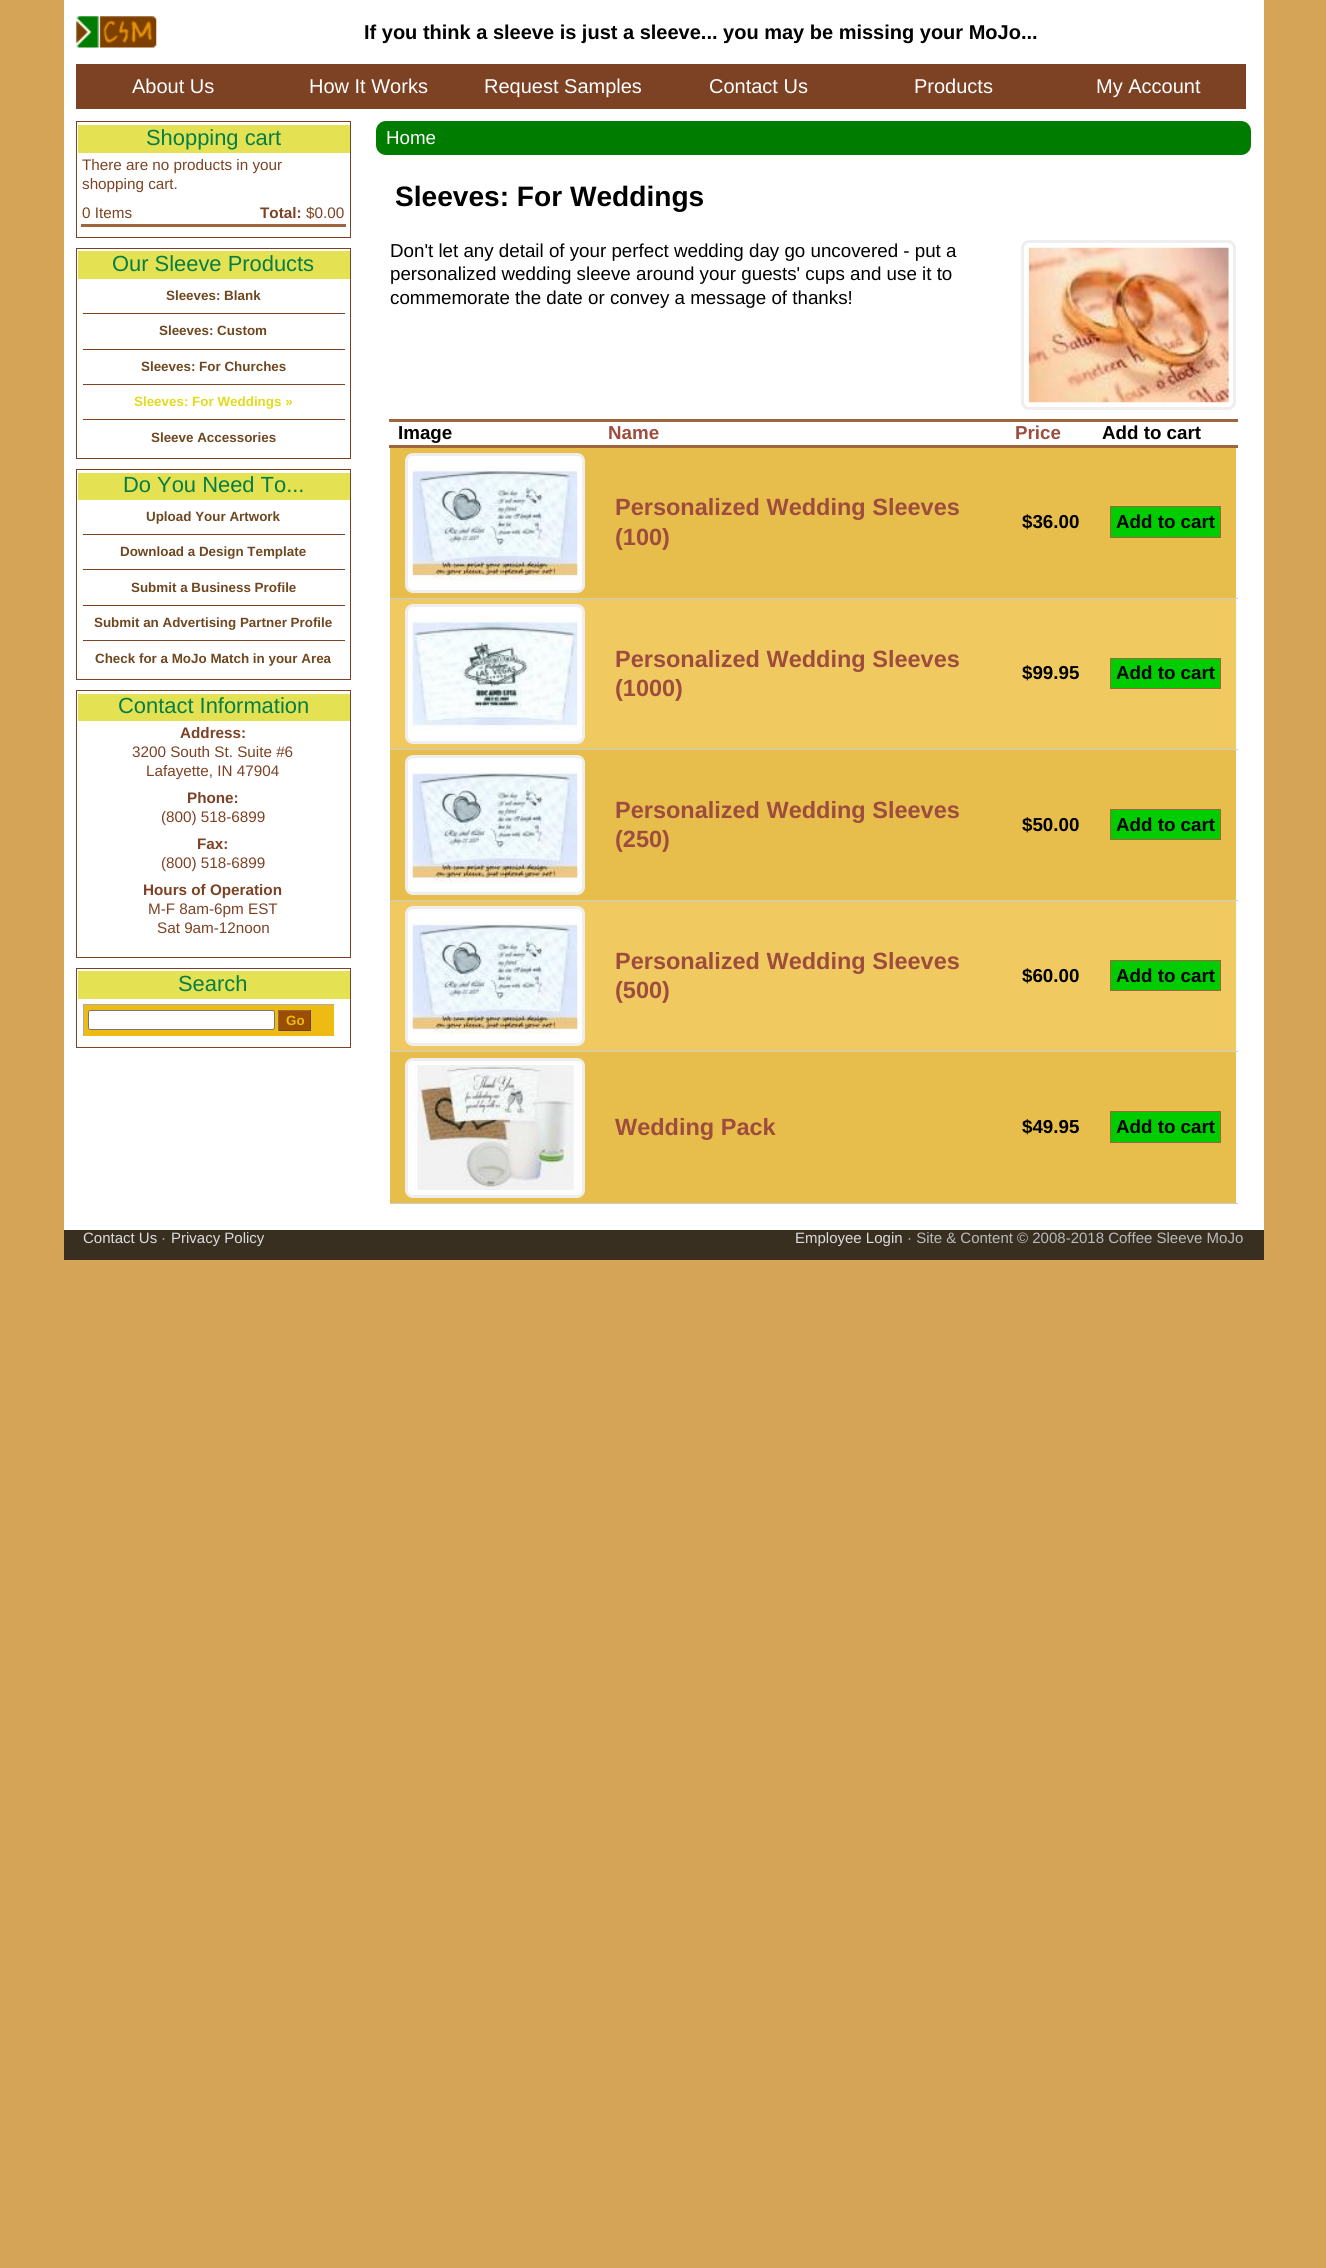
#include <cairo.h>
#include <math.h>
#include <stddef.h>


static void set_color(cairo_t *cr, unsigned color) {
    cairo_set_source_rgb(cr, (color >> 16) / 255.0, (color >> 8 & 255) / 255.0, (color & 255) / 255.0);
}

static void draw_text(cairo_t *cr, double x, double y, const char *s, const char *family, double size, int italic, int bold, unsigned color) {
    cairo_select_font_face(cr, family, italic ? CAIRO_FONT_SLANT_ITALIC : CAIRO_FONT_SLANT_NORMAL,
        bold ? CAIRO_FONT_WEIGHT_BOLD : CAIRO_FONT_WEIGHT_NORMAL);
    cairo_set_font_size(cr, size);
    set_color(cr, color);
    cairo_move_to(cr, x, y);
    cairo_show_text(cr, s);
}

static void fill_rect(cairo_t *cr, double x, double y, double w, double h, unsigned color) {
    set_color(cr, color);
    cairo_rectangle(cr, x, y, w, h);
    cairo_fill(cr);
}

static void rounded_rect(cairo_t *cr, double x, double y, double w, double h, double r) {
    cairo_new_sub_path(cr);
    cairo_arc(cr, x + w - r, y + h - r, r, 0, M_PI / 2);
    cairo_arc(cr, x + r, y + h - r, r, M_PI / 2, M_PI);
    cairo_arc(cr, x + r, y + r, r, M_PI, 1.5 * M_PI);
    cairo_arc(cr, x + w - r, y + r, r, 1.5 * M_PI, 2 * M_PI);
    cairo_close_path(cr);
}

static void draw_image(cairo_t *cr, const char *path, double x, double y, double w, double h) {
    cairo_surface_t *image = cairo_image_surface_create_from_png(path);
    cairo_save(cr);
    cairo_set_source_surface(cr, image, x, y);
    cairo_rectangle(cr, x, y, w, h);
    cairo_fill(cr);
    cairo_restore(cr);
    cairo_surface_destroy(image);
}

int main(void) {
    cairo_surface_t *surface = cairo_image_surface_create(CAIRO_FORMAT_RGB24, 1326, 2268);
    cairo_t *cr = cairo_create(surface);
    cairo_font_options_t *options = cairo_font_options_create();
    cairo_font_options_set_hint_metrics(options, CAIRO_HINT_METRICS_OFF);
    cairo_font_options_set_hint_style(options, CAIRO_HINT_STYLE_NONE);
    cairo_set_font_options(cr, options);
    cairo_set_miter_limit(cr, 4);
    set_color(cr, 0xD5A456);
    cairo_paint(cr);
    fill_rect(cr, 64, 0, 1200, 1230, 0xFFFFFF);
    draw_image(cr, "assets/img1.png", 76, 16, 81, 32);
    draw_text(cr, 364, 39, "If you think a sleeve is just a sleeve... you may be missing your MoJo...", "Liberation Sans", 20, 0, 1, 0x000000);
    fill_rect(cr, 76, 64, 1170, 45, 0x7D4224);
    draw_text(cr, 132, 93, "About Us", "Liberation Sans", 20, 0, 0, 0xFFFFFF);
    draw_text(cr, 309, 93, "How It Works", "Liberation Sans", 20, 0, 0, 0xFFFFFF);
    draw_text(cr, 484, 93, "Request Samples", "Liberation Sans", 20, 0, 0, 0xFFFFFF);
    draw_text(cr, 709, 93, "Contact Us", "Liberation Sans", 20, 0, 0, 0xFFFFFF);
    draw_text(cr, 914, 93, "Products", "Liberation Sans", 20, 0, 0, 0xFFFFFF);
    draw_text(cr, 1096, 93, "My Account", "Liberation Sans", 20, 0, 0, 0xFFFFFF);
    cairo_rectangle(cr, 76.5, 121.5, 274, 116);
    set_color(cr, 0x7D4224);
    cairo_set_line_width(cr, 1);
    cairo_stroke(cr);
    fill_rect(cr, 78, 125, 272, 28, 0xE4E252);
    draw_text(cr, 146, 145, "Shopping cart", "Liberation Sans", 21.9, 0, 0, 0x057D46);
    draw_text(cr, 82, 170, "There are no products in your", "Liberation Sans", 15.25, 0, 0, 0x7D4224);
    draw_text(cr, 82, 189, "shopping cart.", "Liberation Sans", 15.25, 0, 0, 0x7D4224);
    fill_rect(cr, 81, 224, 265, 3, 0x9D663E);
    draw_text(cr, 82, 218, "0 Items", "Liberation Sans", 15.25, 0, 0, 0x7D4224);
    draw_text(cr, 260, 218, "Total:", "Liberation Sans", 15.25, 0, 1, 0x7D4224);
    draw_text(cr, 306, 218, "$0.00", "Liberation Sans", 15.25, 0, 0, 0x7D4224);
    cairo_rectangle(cr, 76.5, 248.5, 274, 210);
    cairo_stroke(cr);
    fill_rect(cr, 78, 251, 272, 28, 0xE4E252);
    draw_text(cr, 112, 271, "Our Sleeve Products", "Liberation Sans", 21.9, 0, 0, 0x057D46);
    fill_rect(cr, 83, 313, 262, 1, 0x7D4224);
    draw_text(cr, 166, 300, "Sleeves: Blank", "Liberation Sans", 13.4, 0, 1, 0x6F4720);
    fill_rect(cr, 83, 349, 262, 1, 0x7D4224);
    draw_text(cr, 159, 335, "Sleeves: Custom", "Liberation Sans", 13.4, 0, 1, 0x6F4720);
    fill_rect(cr, 83, 384, 262, 1, 0x7D4224);
    draw_text(cr, 141, 371, "Sleeves: For Churches", "Liberation Sans", 13.4, 0, 1, 0x6F4720);
    fill_rect(cr, 83, 419, 262, 1, 0x7D4224);
    draw_text(cr, 134, 406, "Sleeves: For Weddings »", "Liberation Sans", 13.4, 0, 1, 0xE1DB1C);
    draw_text(cr, 151, 442, "Sleeve Accessories", "Liberation Sans", 13.4, 0, 1, 0x6F4720);
    cairo_rectangle(cr, 76.5, 469.5, 274, 210);
    set_color(cr, 0x7D4224);
    cairo_stroke(cr);
    fill_rect(cr, 78, 473, 272, 27, 0xE4E252);
    draw_text(cr, 123, 492, "Do You Need To...", "Liberation Sans", 21.9, 0, 0, 0x057D46);
    fill_rect(cr, 83, 534, 262, 1, 0x7D4224);
    draw_text(cr, 146, 521, "Upload Your Artwork", "Liberation Sans", 13.4, 0, 1, 0x6F4720);
    fill_rect(cr, 83, 569, 262, 1, 0x7D4224);
    draw_text(cr, 120, 556, "Download a Design Template", "Liberation Sans", 13.4, 0, 1, 0x6F4720);
    fill_rect(cr, 83, 605, 262, 1, 0x7D4224);
    draw_text(cr, 131, 592, "Submit a Business Profile", "Liberation Sans", 13.4, 0, 1, 0x6F4720);
    fill_rect(cr, 83, 640, 262, 1, 0x7D4224);
    draw_text(cr, 94, 627, "Submit an Advertising Partner Profile", "Liberation Sans", 13.4, 0, 1, 0x6F4720);
    draw_text(cr, 95, 663, "Check for a MoJo Match in your Area", "Liberation Sans", 13.4, 0, 1, 0x6F4720);
    cairo_rectangle(cr, 76.5, 690.5, 274, 267);
    set_color(cr, 0x7D4224);
    cairo_stroke(cr);
    fill_rect(cr, 78, 694, 272, 27, 0xE4E252);
    draw_text(cr, 118, 713, "Contact Information", "Liberation Sans", 21.9, 0, 0, 0x057D46);
    draw_text(cr, 180, 738, "Address:", "Liberation Sans", 15.25, 0, 1, 0x7D4224);
    draw_text(cr, 132, 757, "3200 South St. Suite #6", "Liberation Sans", 15.25, 0, 0, 0x7D4224);
    draw_text(cr, 146, 776, "Lafayette, IN 47904", "Liberation Sans", 15.25, 0, 0, 0x7D4224);
    draw_text(cr, 187, 803, "Phone:", "Liberation Sans", 15.25, 0, 1, 0x7D4224);
    draw_text(cr, 161, 822, "(800) 518-6899", "Liberation Sans", 15.25, 0, 0, 0x7D4224);
    draw_text(cr, 197, 849, "Fax:", "Liberation Sans", 15.25, 0, 1, 0x7D4224);
    draw_text(cr, 161, 868, "(800) 518-6899", "Liberation Sans", 15.25, 0, 0, 0x7D4224);
    draw_text(cr, 143, 895, "Hours of Operation", "Liberation Sans", 15.25, 0, 1, 0x7D4224);
    draw_text(cr, 148, 914, "M-F 8am-6pm EST", "Liberation Sans", 15.25, 0, 0, 0x7D4224);
    draw_text(cr, 157, 933, "Sat 9am-12noon", "Liberation Sans", 15.25, 0, 0, 0x7D4224);
    cairo_rectangle(cr, 76.5, 968.5, 274, 79);
    cairo_stroke(cr);
    fill_rect(cr, 78, 971, 272, 28, 0xE4E252);
    draw_text(cr, 178, 991, "Search", "Liberation Sans", 21.9, 0, 0, 0x057D46);
    fill_rect(cr, 84, 1005, 250, 31, 0xEEBB12);
    fill_rect(cr, 83, 1004, 251, 1, 0xAAACAE);
    fill_rect(cr, 83, 1004, 1, 32, 0xAAACAE);
    set_color(cr, 0xFFFFFF);
    rounded_rect(cr, 88.5, 1010.5, 186, 19, 2);
    cairo_fill_preserve(cr);
    set_color(cr, 0x767676);
    cairo_stroke(cr);
    fill_rect(cr, 279, 1011, 31, 19, 0x9A4F00);
    fill_rect(cr, 278, 1010, 33, 1, 0x9D663E);
    fill_rect(cr, 310, 1010, 1, 21, 0x694429);
    fill_rect(cr, 278, 1030, 33, 1, 0x694429);
    fill_rect(cr, 278, 1010, 1, 21, 0x9D663E);
    draw_text(cr, 286, 1025, "Go", "Liberation Sans", 13.4, 0, 1, 0xEEBB12);
    set_color(cr, 0x007D00);
    rounded_rect(cr, 376, 121, 875, 34, 10);
    cairo_fill(cr);
    draw_text(cr, 386, 144, "Home", "Liberation Sans", 18.75, 0, 0, 0xFFFFFF);
    draw_text(cr, 395, 206, "Sleeves: For Weddings", "Liberation Sans", 28.1, 0, 1, 0x000000);
    draw_text(cr, 390, 257, "Don't let any detail of your perfect wedding day go uncovered - put a", "Liberation Sans", 18.75, 0, 0, 0x000000);
    rounded_rect(cr, 1022.5, 241.5, 212, 167, 6.5);
    set_color(cr, 0xEEEEEE);
    cairo_set_line_width(cr, 3);
    cairo_stroke(cr);
    draw_image(cr, "assets/img2.png", 1028, 247, 201, 156);
    draw_text(cr, 390, 280, "personalized wedding sleeve around your guests' cups and use it to", "Liberation Sans", 18.75, 0, 0, 0x000000);
    draw_text(cr, 390, 304, "commemorate the date or convey a message of thanks!", "Liberation Sans", 18.75, 0, 0, 0x000000);
    draw_text(cr, 398, 439, "Image", "Liberation Sans", 18.75, 0, 1, 0x000000);
    draw_text(cr, 608, 439, "Name", "Liberation Sans", 18.75, 0, 1, 0x9D4C3E);
    draw_text(cr, 1015, 439, "Price", "Liberation Sans", 18.75, 0, 1, 0x9D4C3E);
    fill_rect(cr, 389, 419, 849, 3, 0x9D663E);
    fill_rect(cr, 389, 445, 849, 3, 0x9D663E);
    draw_text(cr, 1102, 439, "Add to cart", "Liberation Sans", 18.75, 0, 1, 0x000000);
    fill_rect(cr, 390, 448, 846, 150, 0xE7BD4C);
    fill_rect(cr, 390, 598, 848, 1, 0xCCCCCC);
    set_color(cr, 0xFFFFFF);
    rounded_rect(cr, 406.5, 454.5, 177, 137, 6.5);
    cairo_fill_preserve(cr);
    set_color(cr, 0xEEEEEE);
    cairo_stroke(cr);
    draw_image(cr, "assets/img3.png", 412, 463, 166, 118);
    draw_text(cr, 615, 515, "Personalized Wedding Sleeves", "Liberation Sans", 23.5, 0, 1, 0x9D4C3E);
    draw_text(cr, 615, 545, "(100)", "Liberation Sans", 23.5, 0, 1, 0x9D4C3E);
    draw_text(cr, 1022, 528, "$36.00", "Liberation Sans", 18.75, 0, 1, 0x000000);
    set_color(cr, 0x00CD00);
    cairo_rectangle(cr, 1110.5, 506.5, 110, 31);
    cairo_fill_preserve(cr);
    set_color(cr, 0x9D663E);
    cairo_set_line_width(cr, 1);
    cairo_stroke(cr);
    draw_text(cr, 1116, 528, "Add to cart", "Liberation Sans", 18.75, 0, 1, 0x000000);
    fill_rect(cr, 390, 599, 846, 150, 0xF0CA60);
    fill_rect(cr, 390, 749, 848, 1, 0xCCCCCC);
    set_color(cr, 0xFFFFFF);
    rounded_rect(cr, 406.5, 605.5, 177, 137, 6.5);
    cairo_fill_preserve(cr);
    set_color(cr, 0xEEEEEE);
    cairo_set_line_width(cr, 3);
    cairo_stroke(cr);
    draw_image(cr, "assets/img4.png", 412, 616, 166, 114);
    draw_text(cr, 615, 667, "Personalized Wedding Sleeves", "Liberation Sans", 23.5, 0, 1, 0x9D4C3E);
    draw_text(cr, 615, 696, "(1000)", "Liberation Sans", 23.5, 0, 1, 0x9D4C3E);
    draw_text(cr, 1022, 679, "$99.95", "Liberation Sans", 18.75, 0, 1, 0x000000);
    set_color(cr, 0x00CD00);
    cairo_rectangle(cr, 1110.5, 658.5, 110, 30);
    cairo_fill_preserve(cr);
    set_color(cr, 0x9D663E);
    cairo_set_line_width(cr, 1);
    cairo_stroke(cr);
    draw_text(cr, 1116, 679, "Add to cart", "Liberation Sans", 18.75, 0, 1, 0x000000);
    fill_rect(cr, 390, 750, 846, 150, 0xE7BD4C);
    fill_rect(cr, 390, 900, 848, 1, 0xCCCCCC);
    set_color(cr, 0xFFFFFF);
    rounded_rect(cr, 406.5, 756.5, 177, 137, 6.5);
    cairo_fill_preserve(cr);
    set_color(cr, 0xEEEEEE);
    cairo_set_line_width(cr, 3);
    cairo_stroke(cr);
    draw_image(cr, "assets/img5.png", 412, 766, 166, 117);
    draw_text(cr, 615, 818, "Personalized Wedding Sleeves", "Liberation Sans", 23.5, 0, 1, 0x9D4C3E);
    draw_text(cr, 615, 847, "(250)", "Liberation Sans", 23.5, 0, 1, 0x9D4C3E);
    draw_text(cr, 1022, 831, "$50.00", "Liberation Sans", 18.75, 0, 1, 0x000000);
    set_color(cr, 0x00CD00);
    cairo_rectangle(cr, 1110.5, 809.5, 110, 30);
    cairo_fill_preserve(cr);
    set_color(cr, 0x9D663E);
    cairo_set_line_width(cr, 1);
    cairo_stroke(cr);
    draw_text(cr, 1116, 831, "Add to cart", "Liberation Sans", 18.75, 0, 1, 0x000000);
    fill_rect(cr, 390, 901, 846, 150, 0xF0CA60);
    fill_rect(cr, 390, 1051, 848, 1, 0xCCCCCC);
    set_color(cr, 0xFFFFFF);
    rounded_rect(cr, 406.5, 907.5, 177, 137, 6.5);
    cairo_fill_preserve(cr);
    set_color(cr, 0xEEEEEE);
    cairo_set_line_width(cr, 3);
    cairo_stroke(cr);
    draw_image(cr, "assets/img6.png", 412, 917, 166, 117);
    draw_text(cr, 615, 969, "Personalized Wedding Sleeves", "Liberation Sans", 23.5, 0, 1, 0x9D4C3E);
    draw_text(cr, 615, 998, "(500)", "Liberation Sans", 23.5, 0, 1, 0x9D4C3E);
    draw_text(cr, 1022, 982, "$60.00", "Liberation Sans", 18.75, 0, 1, 0x000000);
    set_color(cr, 0x00CD00);
    cairo_rectangle(cr, 1110.5, 960.5, 110, 30);
    cairo_fill_preserve(cr);
    set_color(cr, 0x9D663E);
    cairo_set_line_width(cr, 1);
    cairo_stroke(cr);
    draw_text(cr, 1116, 982, "Add to cart", "Liberation Sans", 18.75, 0, 1, 0x000000);
    fill_rect(cr, 390, 1052, 846, 151, 0xE7BD4C);
    fill_rect(cr, 390, 1203, 848, 1, 0xCCCCCC);
    set_color(cr, 0xFFFFFF);
    rounded_rect(cr, 406.5, 1059.5, 177, 137, 6.5);
    cairo_fill_preserve(cr);
    set_color(cr, 0xEEEEEE);
    cairo_set_line_width(cr, 3);
    cairo_stroke(cr);
    draw_image(cr, "assets/img7.png", 413, 1065, 161, 125);
    draw_text(cr, 615, 1135, "Wedding Pack", "Liberation Sans", 23.5, 0, 1, 0x9D4C3E);
    draw_text(cr, 1022, 1133, "$49.95", "Liberation Sans", 18.75, 0, 1, 0x000000);
    set_color(cr, 0x00CD00);
    cairo_rectangle(cr, 1110.5, 1111.5, 110, 31);
    cairo_fill_preserve(cr);
    set_color(cr, 0x9D663E);
    cairo_set_line_width(cr, 1);
    cairo_stroke(cr);
    draw_text(cr, 1116, 1133, "Add to cart", "Liberation Sans", 18.75, 0, 1, 0x000000);
    fill_rect(cr, 64, 1230, 1200, 30, 0x382F21);
    draw_text(cr, 83, 1243, "Contact Us", "Liberation Sans", 15, 0, 0, 0xDDDDDD);
    draw_text(cr, 161, 1243, "·", "Liberation Sans", 15, 0, 0, 0xBBBBBB);
    draw_text(cr, 171, 1243, "Privacy Policy", "Liberation Sans", 15, 0, 0, 0xDDDDDD);
    draw_text(cr, 795, 1243, "Employee Login", "Liberation Sans", 15, 0, 0, 0xDDDDDD);
    draw_text(cr, 907, 1243, "· Site & Content © 2008-2018 Coffee Sleeve MoJo", "Liberation Sans", 15, 0, 0, 0xBBBBBB);
    cairo_surface_write_to_png(surface, "output.png");
    cairo_font_options_destroy(options);
    cairo_destroy(cr);
    cairo_surface_destroy(surface);
    return 0;
}
